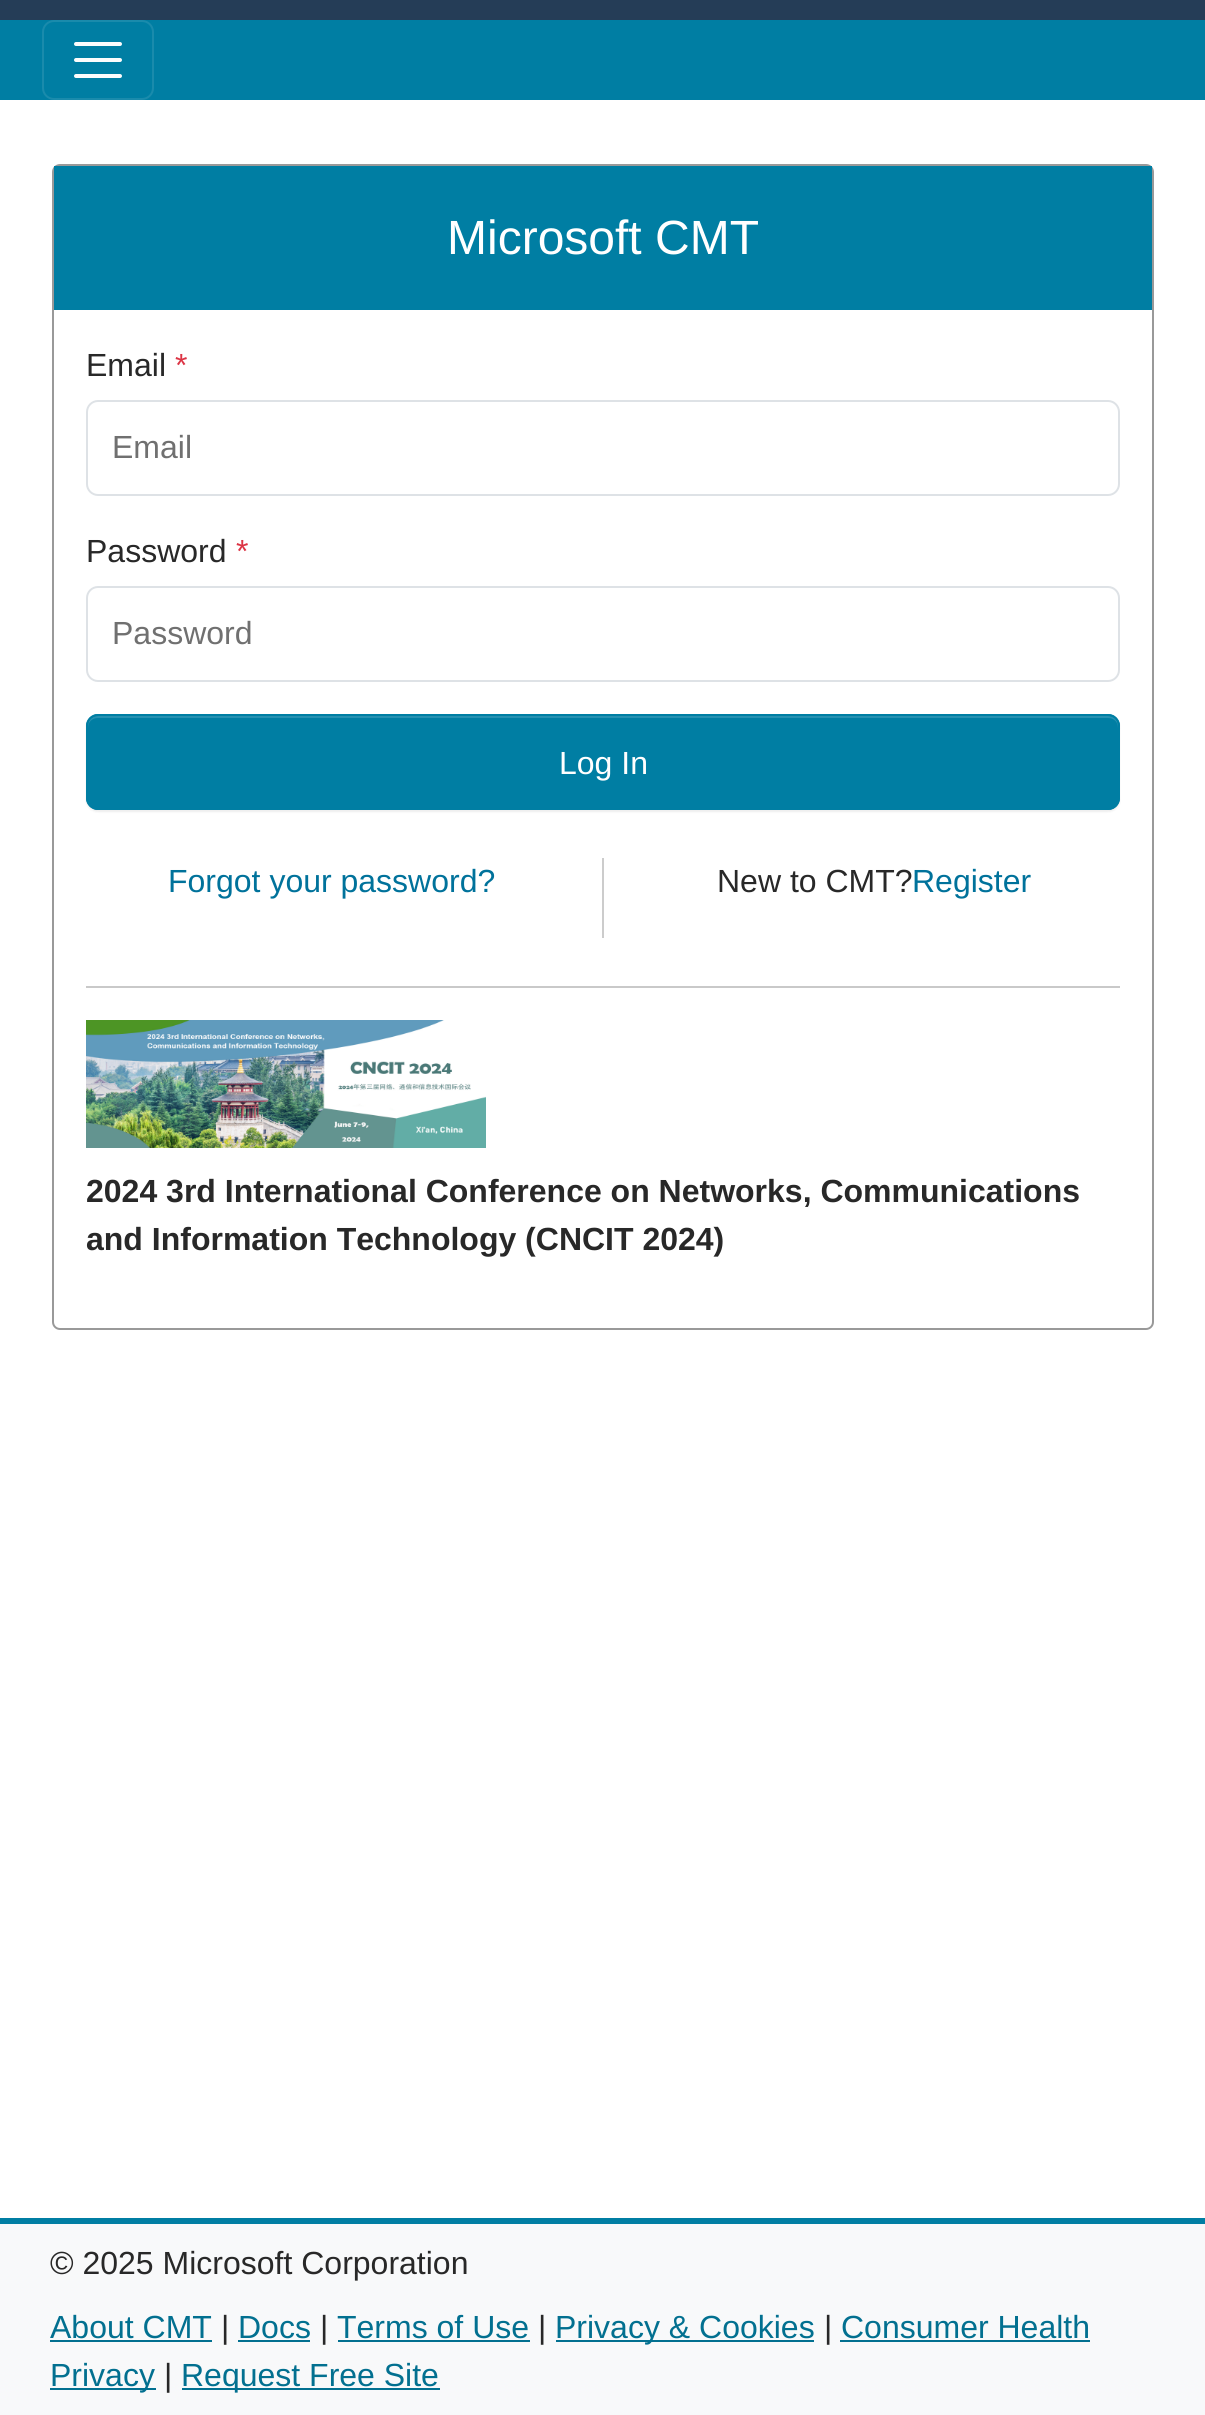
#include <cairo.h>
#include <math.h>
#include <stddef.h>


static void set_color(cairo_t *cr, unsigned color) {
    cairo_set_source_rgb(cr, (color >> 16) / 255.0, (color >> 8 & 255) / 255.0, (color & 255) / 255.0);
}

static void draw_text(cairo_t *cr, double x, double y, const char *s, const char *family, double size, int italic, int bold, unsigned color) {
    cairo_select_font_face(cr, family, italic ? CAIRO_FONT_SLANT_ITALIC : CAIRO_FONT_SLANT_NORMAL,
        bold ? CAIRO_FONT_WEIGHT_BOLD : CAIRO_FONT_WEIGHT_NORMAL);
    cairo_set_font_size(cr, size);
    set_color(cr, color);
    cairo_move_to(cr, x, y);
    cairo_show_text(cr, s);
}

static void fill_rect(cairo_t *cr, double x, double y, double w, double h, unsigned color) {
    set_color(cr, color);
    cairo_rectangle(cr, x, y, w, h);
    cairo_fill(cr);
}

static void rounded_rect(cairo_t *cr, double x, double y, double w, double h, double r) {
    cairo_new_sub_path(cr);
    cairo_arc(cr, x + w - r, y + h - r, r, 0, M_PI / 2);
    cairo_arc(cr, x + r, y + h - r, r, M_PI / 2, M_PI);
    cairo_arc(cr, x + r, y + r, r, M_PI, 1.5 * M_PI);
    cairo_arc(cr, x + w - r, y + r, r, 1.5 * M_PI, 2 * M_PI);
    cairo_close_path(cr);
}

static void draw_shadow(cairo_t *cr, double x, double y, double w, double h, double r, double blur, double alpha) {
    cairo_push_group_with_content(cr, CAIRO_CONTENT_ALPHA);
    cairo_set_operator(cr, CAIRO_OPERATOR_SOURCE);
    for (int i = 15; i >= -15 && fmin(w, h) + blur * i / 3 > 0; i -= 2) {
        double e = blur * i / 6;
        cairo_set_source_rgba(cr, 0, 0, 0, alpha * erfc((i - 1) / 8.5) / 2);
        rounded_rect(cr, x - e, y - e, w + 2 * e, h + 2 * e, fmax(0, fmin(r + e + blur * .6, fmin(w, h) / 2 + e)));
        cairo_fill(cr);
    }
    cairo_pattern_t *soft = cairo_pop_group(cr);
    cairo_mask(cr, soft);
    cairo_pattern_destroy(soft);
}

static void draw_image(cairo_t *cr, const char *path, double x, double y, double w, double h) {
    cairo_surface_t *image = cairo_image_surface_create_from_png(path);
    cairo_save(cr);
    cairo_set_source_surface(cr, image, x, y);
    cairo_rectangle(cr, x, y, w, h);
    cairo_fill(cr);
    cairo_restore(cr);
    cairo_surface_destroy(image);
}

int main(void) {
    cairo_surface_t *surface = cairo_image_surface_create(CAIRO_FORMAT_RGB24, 1205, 2415);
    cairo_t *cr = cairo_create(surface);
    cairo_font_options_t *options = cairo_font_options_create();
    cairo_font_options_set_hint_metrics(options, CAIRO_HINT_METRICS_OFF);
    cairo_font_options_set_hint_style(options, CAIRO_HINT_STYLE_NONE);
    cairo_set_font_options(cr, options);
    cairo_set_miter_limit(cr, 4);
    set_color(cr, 0xFFFFFF);
    cairo_paint(cr);
    fill_rect(cr, 0, 0, 1205, 20, 0x253D57);
    fill_rect(cr, 0, 20, 1205, 80, 0x007EA3);
    rounded_rect(cr, 43, 21, 110, 78, 11);
    set_color(cr, 0x1A8BAC);
    cairo_stroke(cr);
    cairo_new_path(cr);
    cairo_move_to(cr, 76, 44);
    cairo_line_to(cr, 120, 44);
    cairo_move_to(cr, 76, 60);
    cairo_line_to(cr, 120, 60);
    cairo_move_to(cr, 76, 76);
    cairo_line_to(cr, 120, 76);
    set_color(cr, 0xFCFCFC);
    cairo_set_line_width(cr, 4);
    cairo_set_line_cap(cr, CAIRO_LINE_CAP_ROUND);
    cairo_stroke(cr);
    rounded_rect(cr, 53, 165, 1100, 1164, 7);
    set_color(cr, 0x999999);
    cairo_set_line_width(cr, 2);
    cairo_set_line_cap(cr, CAIRO_LINE_CAP_BUTT);
    cairo_stroke(cr);
    fill_rect(cr, 54, 166, 1098, 144, 0x007EA3);
    draw_text(cr, 447, 254, "Microsoft CMT", "Liberation Sans", 48, 0, 0, 0xFFFFFF);
    draw_text(cr, 86, 376, "Email", "Liberation Sans", 32, 0, 0, 0x282828);
    draw_text(cr, 175, 376, "*", "Liberation Sans", 32, 0, 0, 0xDC3545);
    rounded_rect(cr, 87, 401, 1032, 94, 11);
    set_color(cr, 0xDEE2E6);
    cairo_stroke(cr);
    draw_text(cr, 112, 458, "Email", "Liberation Sans", 32, 0, 0, 0x707070);
    draw_text(cr, 86, 562, "Password", "Liberation Sans", 32, 0, 0, 0x282828);
    draw_text(cr, 236, 562, "*", "Liberation Sans", 32, 0, 0, 0xDC3545);
    rounded_rect(cr, 87, 587, 1032, 94, 11);
    set_color(cr, 0xDEE2E6);
    cairo_stroke(cr);
    draw_text(cr, 112, 644, "Password", "Liberation Sans", 32, 0, 0, 0x707070);
    set_color(cr, 0x000000);
    draw_shadow(cr, 86, 716, 1034, 96, 12, 1, 0.07);
    set_color(cr, 0x007EA3);
    rounded_rect(cr, 86, 714, 1034, 96, 12);
    cairo_fill(cr);
    set_color(cr, 0x2691B1);
    cairo_new_path(cr);
    cairo_move_to(cr, 98, 718);
    cairo_line_to(cr, 1108, 718);
    cairo_curve_to(cr, 1114, 718, 1118, 722, 1118, 728);
    cairo_line_to(cr, 1118, 726);
    cairo_curve_to(cr, 1118, 720, 1114, 716, 1108, 716);
    cairo_line_to(cr, 98, 716);
    cairo_curve_to(cr, 92, 716, 88, 720, 88, 726);
    cairo_line_to(cr, 88, 728);
    cairo_curve_to(cr, 88, 722, 92, 718, 98, 718);
    cairo_close_path(cr);
    cairo_fill(cr);
    rounded_rect(cr, 87, 715, 1032, 94, 11);
    set_color(cr, 0x007EA3);
    cairo_stroke(cr);
    draw_text(cr, 559, 774, "Log In", "Liberation Sans", 32, 0, 0, 0xFFFFFF);
    draw_text(cr, 168, 892, "Forgot your password?", "Liberation Sans", 32, 0, 0, 0x00729B);
    fill_rect(cr, 602, 858, 2, 80, 0xCCCCCC);
    draw_text(cr, 717, 892, "New to CMT?", "Liberation Sans", 32, 0, 0, 0x282828);
    draw_text(cr, 912, 892, "Register", "Liberation Sans", 32, 0, 0, 0x00729B);
    fill_rect(cr, 86, 986, 1034, 2, 0xC9C9C9);
    draw_image(cr, "assets/img1.png", 86, 1020, 400, 128);
    draw_text(cr, 86, 1202, "2024 3rd International Conference on Networks, Communications", "Liberation Sans", 32, 0, 1, 0x282828);
    draw_text(cr, 86, 1250, "and Information Technology (CNCIT 2024)", "Liberation Sans", 32, 0, 1, 0x282828);
    fill_rect(cr, 0, 2224, 1205, 191, 0xF8F9FA);
    fill_rect(cr, 0, 2218, 1205, 6, 0x007EA3);
    draw_text(cr, 50, 2274, "© 2025 Microsoft Corporation", "Liberation Sans", 32, 0, 0, 0x282828);
    draw_text(cr, 50, 2338, "About CMT", "Liberation Sans", 32, 0, 0, 0x027090);
    fill_rect(cr, 50, 2340, 162, 2, 0x027090);
    draw_text(cr, 221, 2338, "|", "Liberation Sans", 32, 0, 0, 0x282828);
    draw_text(cr, 238, 2338, "Docs", "Liberation Sans", 32, 0, 0, 0x027090);
    fill_rect(cr, 238, 2340, 72, 2, 0x027090);
    draw_text(cr, 320, 2338, "|", "Liberation Sans", 32, 0, 0, 0x282828);
    draw_text(cr, 337, 2338, "Terms of Use", "Liberation Sans", 32, 0, 0, 0x027090);
    fill_rect(cr, 338, 2340, 192, 2, 0x027090);
    draw_text(cr, 538, 2338, "|", "Liberation Sans", 32, 0, 0, 0x282828);
    fill_rect(cr, 556, 2340, 258, 2, 0x027090);
    draw_text(cr, 555, 2338, "Privacy & Cookies", "Liberation Sans", 32, 0, 0, 0x027090);
    draw_text(cr, 824, 2338, "|", "Liberation Sans", 32, 0, 0, 0x282828);
    draw_text(cr, 841, 2338, "Consumer Health", "Liberation Sans", 32, 0, 0, 0x027090);
    fill_rect(cr, 840, 2340, 250, 2, 0x027090);
    fill_rect(cr, 50, 2388, 106, 2, 0x027090);
    draw_text(cr, 50, 2386, "Privacy", "Liberation Sans", 32, 0, 0, 0x027090);
    draw_text(cr, 164, 2386, "|", "Liberation Sans", 32, 0, 0, 0x282828);
    fill_rect(cr, 182, 2388, 258, 2, 0x027090);
    draw_text(cr, 181, 2386, "Request Free Site", "Liberation Sans", 32, 0, 0, 0x027090);
    cairo_surface_write_to_png(surface, "output.png");
    cairo_font_options_destroy(options);
    cairo_destroy(cr);
    cairo_surface_destroy(surface);
    return 0;
}
